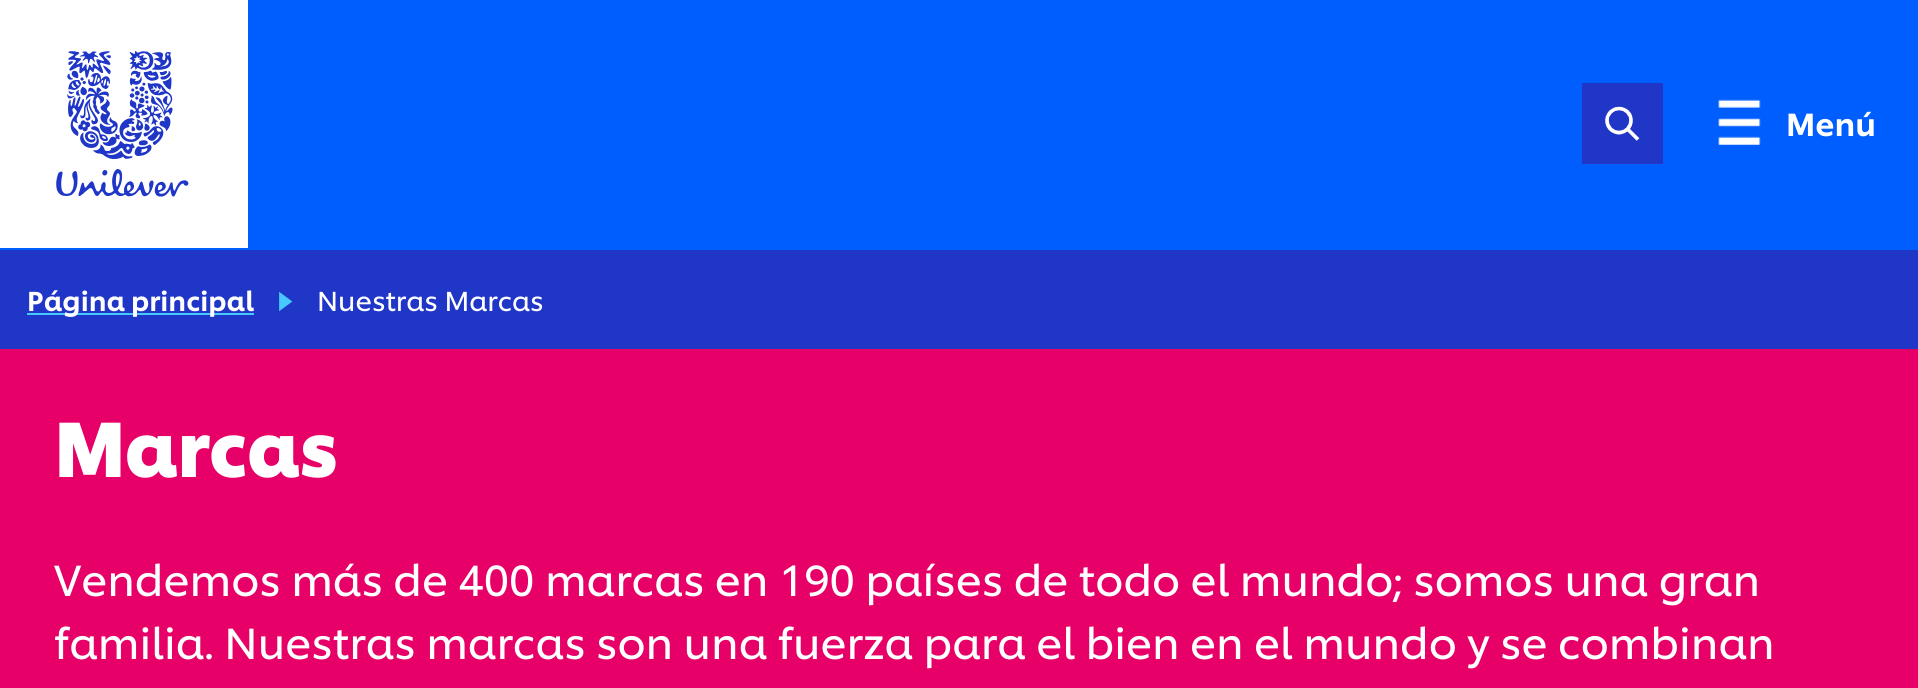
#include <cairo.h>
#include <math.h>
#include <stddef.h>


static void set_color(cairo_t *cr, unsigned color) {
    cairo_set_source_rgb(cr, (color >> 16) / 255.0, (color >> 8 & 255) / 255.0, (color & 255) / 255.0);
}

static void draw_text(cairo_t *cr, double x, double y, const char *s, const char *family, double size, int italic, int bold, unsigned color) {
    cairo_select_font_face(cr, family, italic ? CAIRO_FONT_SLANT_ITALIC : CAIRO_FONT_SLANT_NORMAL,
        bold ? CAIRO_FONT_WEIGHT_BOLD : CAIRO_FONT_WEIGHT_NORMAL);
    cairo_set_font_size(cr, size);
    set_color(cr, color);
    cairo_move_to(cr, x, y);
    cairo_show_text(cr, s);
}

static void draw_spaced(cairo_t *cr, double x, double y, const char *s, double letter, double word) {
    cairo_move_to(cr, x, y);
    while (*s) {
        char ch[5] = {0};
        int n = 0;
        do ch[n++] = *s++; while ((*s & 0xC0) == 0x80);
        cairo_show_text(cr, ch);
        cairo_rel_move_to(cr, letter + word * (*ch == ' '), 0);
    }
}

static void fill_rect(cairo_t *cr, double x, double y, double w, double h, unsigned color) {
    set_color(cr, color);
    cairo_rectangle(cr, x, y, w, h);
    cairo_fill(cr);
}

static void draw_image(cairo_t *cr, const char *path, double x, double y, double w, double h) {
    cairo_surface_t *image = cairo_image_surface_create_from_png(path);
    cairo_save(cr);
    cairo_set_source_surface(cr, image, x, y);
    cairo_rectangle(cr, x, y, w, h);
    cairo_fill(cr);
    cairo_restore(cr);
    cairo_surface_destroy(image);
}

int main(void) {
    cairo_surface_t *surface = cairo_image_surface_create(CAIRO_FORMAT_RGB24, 1918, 688);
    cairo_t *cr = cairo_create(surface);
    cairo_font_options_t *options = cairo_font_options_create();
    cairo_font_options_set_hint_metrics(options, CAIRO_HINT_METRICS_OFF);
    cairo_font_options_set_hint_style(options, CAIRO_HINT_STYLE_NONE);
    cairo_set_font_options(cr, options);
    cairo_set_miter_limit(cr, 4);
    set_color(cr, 0x1F36C7);
    cairo_paint(cr);
    fill_rect(cr, 0, 0, 1918, 250, 0x005EFF);
    fill_rect(cr, 0, 0, 248, 248, 0xFFFFFF);
    draw_image(cr, "assets/img1.png", 56, 51, 133, 146);
    fill_rect(cr, 1582, 83, 81, 81, 0x1F36C7);
    draw_image(cr, "assets/img2.png", 1605, 106, 35, 35);
    draw_image(cr, "assets/img3.png", 1718, 99, 43, 46);
    draw_text(cr, 1786, 136, "Menú", "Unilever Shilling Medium", 31.5, 0, 0, 0xFFFFFF);
    fill_rect(cr, 27, 313, 227, 2, 0x47C8FF);
    draw_text(cr, 27, 311, "Página principal", "Unilever Shilling Medium", 27, 0, 0, 0xFFFFFF);
    draw_image(cr, "assets/img4.png", 279, 291, 14, 21);
    draw_text(cr, 317, 311, "Nuestras Marcas", "Unilever Shilling", 27, 0, 0, 0xFFFFFF);
    fill_rect(cr, 0, 349, 1918, 339, 0xE60067);
    cairo_select_font_face(cr, "Unilever Shilling", CAIRO_FONT_SLANT_NORMAL, CAIRO_FONT_WEIGHT_BOLD);
    cairo_set_font_size(cr, 76.5);
    set_color(cr, 0xFFFFFF);
    draw_spaced(cr, 54, 477, "Marcas", -1.5, 0);
    draw_text(cr, 54, 596, "Vendemos más de 400 marcas en 190 países de todo el mundo; somos una gran", "Unilever Shilling", 42.75, 0, 0, 0xFFFFFF);
    draw_text(cr, 54, 659, "familia. Nuestras marcas son una fuerza para el bien en el mundo y se combinan", "Unilever Shilling", 42.75, 0, 0, 0xFFFFFF);
    cairo_surface_write_to_png(surface, "output.png");
    cairo_font_options_destroy(options);
    cairo_destroy(cr);
    cairo_surface_destroy(surface);
    return 0;
}
